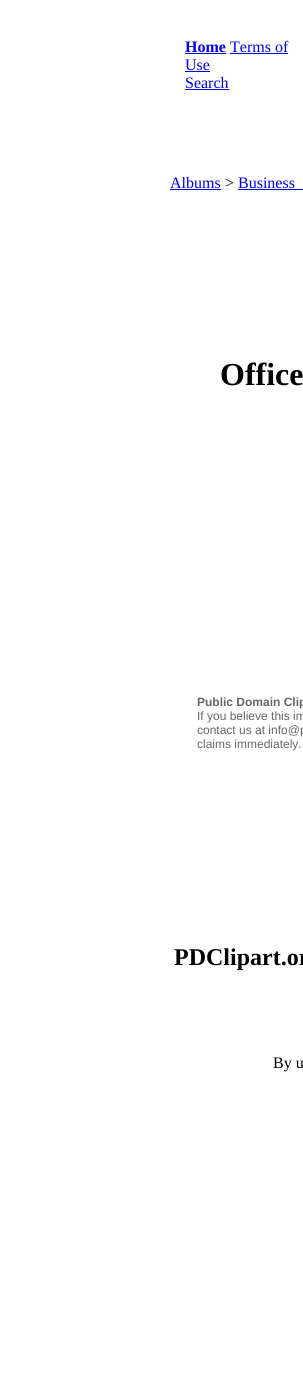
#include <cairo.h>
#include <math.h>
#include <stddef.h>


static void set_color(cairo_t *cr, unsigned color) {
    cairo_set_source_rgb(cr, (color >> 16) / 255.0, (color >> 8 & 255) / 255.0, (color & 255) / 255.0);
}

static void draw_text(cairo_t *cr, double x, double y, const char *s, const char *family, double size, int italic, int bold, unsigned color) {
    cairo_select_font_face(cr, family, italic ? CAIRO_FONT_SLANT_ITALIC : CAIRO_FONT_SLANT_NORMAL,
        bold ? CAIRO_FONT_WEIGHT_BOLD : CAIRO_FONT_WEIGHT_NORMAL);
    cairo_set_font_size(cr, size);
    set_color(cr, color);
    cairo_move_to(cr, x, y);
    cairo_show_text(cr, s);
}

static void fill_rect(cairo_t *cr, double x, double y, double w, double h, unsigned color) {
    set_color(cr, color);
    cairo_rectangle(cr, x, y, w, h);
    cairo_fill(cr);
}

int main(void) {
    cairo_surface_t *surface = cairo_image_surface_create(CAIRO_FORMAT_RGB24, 303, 1378);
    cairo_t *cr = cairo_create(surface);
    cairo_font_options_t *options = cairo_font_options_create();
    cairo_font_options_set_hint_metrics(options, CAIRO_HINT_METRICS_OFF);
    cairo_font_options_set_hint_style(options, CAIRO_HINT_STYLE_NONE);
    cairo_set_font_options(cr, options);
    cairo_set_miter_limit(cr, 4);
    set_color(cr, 0xFFFFFF);
    cairo_paint(cr);
    draw_text(cr, 185, 52, "Home", "Liberation Serif", 16, 0, 1, 0x0000EE);
    fill_rect(cr, 185, 53, 41, 1, 0x0000EE);
    draw_text(cr, 230, 52, "Terms of", "Liberation Serif", 16, 0, 0, 0x0000EE);
    fill_rect(cr, 230, 53, 58, 1, 0x0000EE);
    draw_text(cr, 185, 70, "Use", "Liberation Serif", 16, 0, 0, 0x0000EE);
    fill_rect(cr, 185, 71, 25, 1, 0x0000EE);
    draw_text(cr, 185, 88, "Search", "Liberation Serif", 16, 0, 0, 0x0000EE);
    fill_rect(cr, 185, 89, 44, 1, 0x0000EE);
    draw_text(cr, 170, 188, "Albums", "Liberation Serif", 16, 0, 0, 0x0000EE);
    fill_rect(cr, 170, 189, 51, 1, 0x0000EE);
    draw_text(cr, 225, 188, ">", "Liberation Serif", 16, 0, 0, 0x000000);
    draw_text(cr, 238, 188, "Business", "Liberation Serif", 16, 0, 0, 0x0000EE);
    fill_rect(cr, 238, 189, 65, 1, 0x0000EE);
    draw_text(cr, 220, 385, "Office", "Liberation Serif", 32, 0, 1, 0x000000);
    draw_text(cr, 197, 706, "Public Domain Clip", "Liberation Sans", 12, 0, 1, 0x666666);
    draw_text(cr, 197, 720, "If you believe this im", "Liberation Sans", 12, 0, 0, 0x666666);
    draw_text(cr, 197, 734, "contact us at info@p", "Liberation Sans", 12, 0, 0, 0x666666);
    draw_text(cr, 197, 748, "claims immediately.", "Liberation Sans", 12, 0, 0, 0x666666);
    draw_text(cr, 174, 965, "PDClipart.or", "Liberation Serif", 24, 0, 1, 0x000000);
    draw_text(cr, 273, 1068, "By u", "Liberation Serif", 16, 0, 0, 0x000000);
    cairo_surface_write_to_png(surface, "output.png");
    cairo_font_options_destroy(options);
    cairo_destroy(cr);
    cairo_surface_destroy(surface);
    return 0;
}
